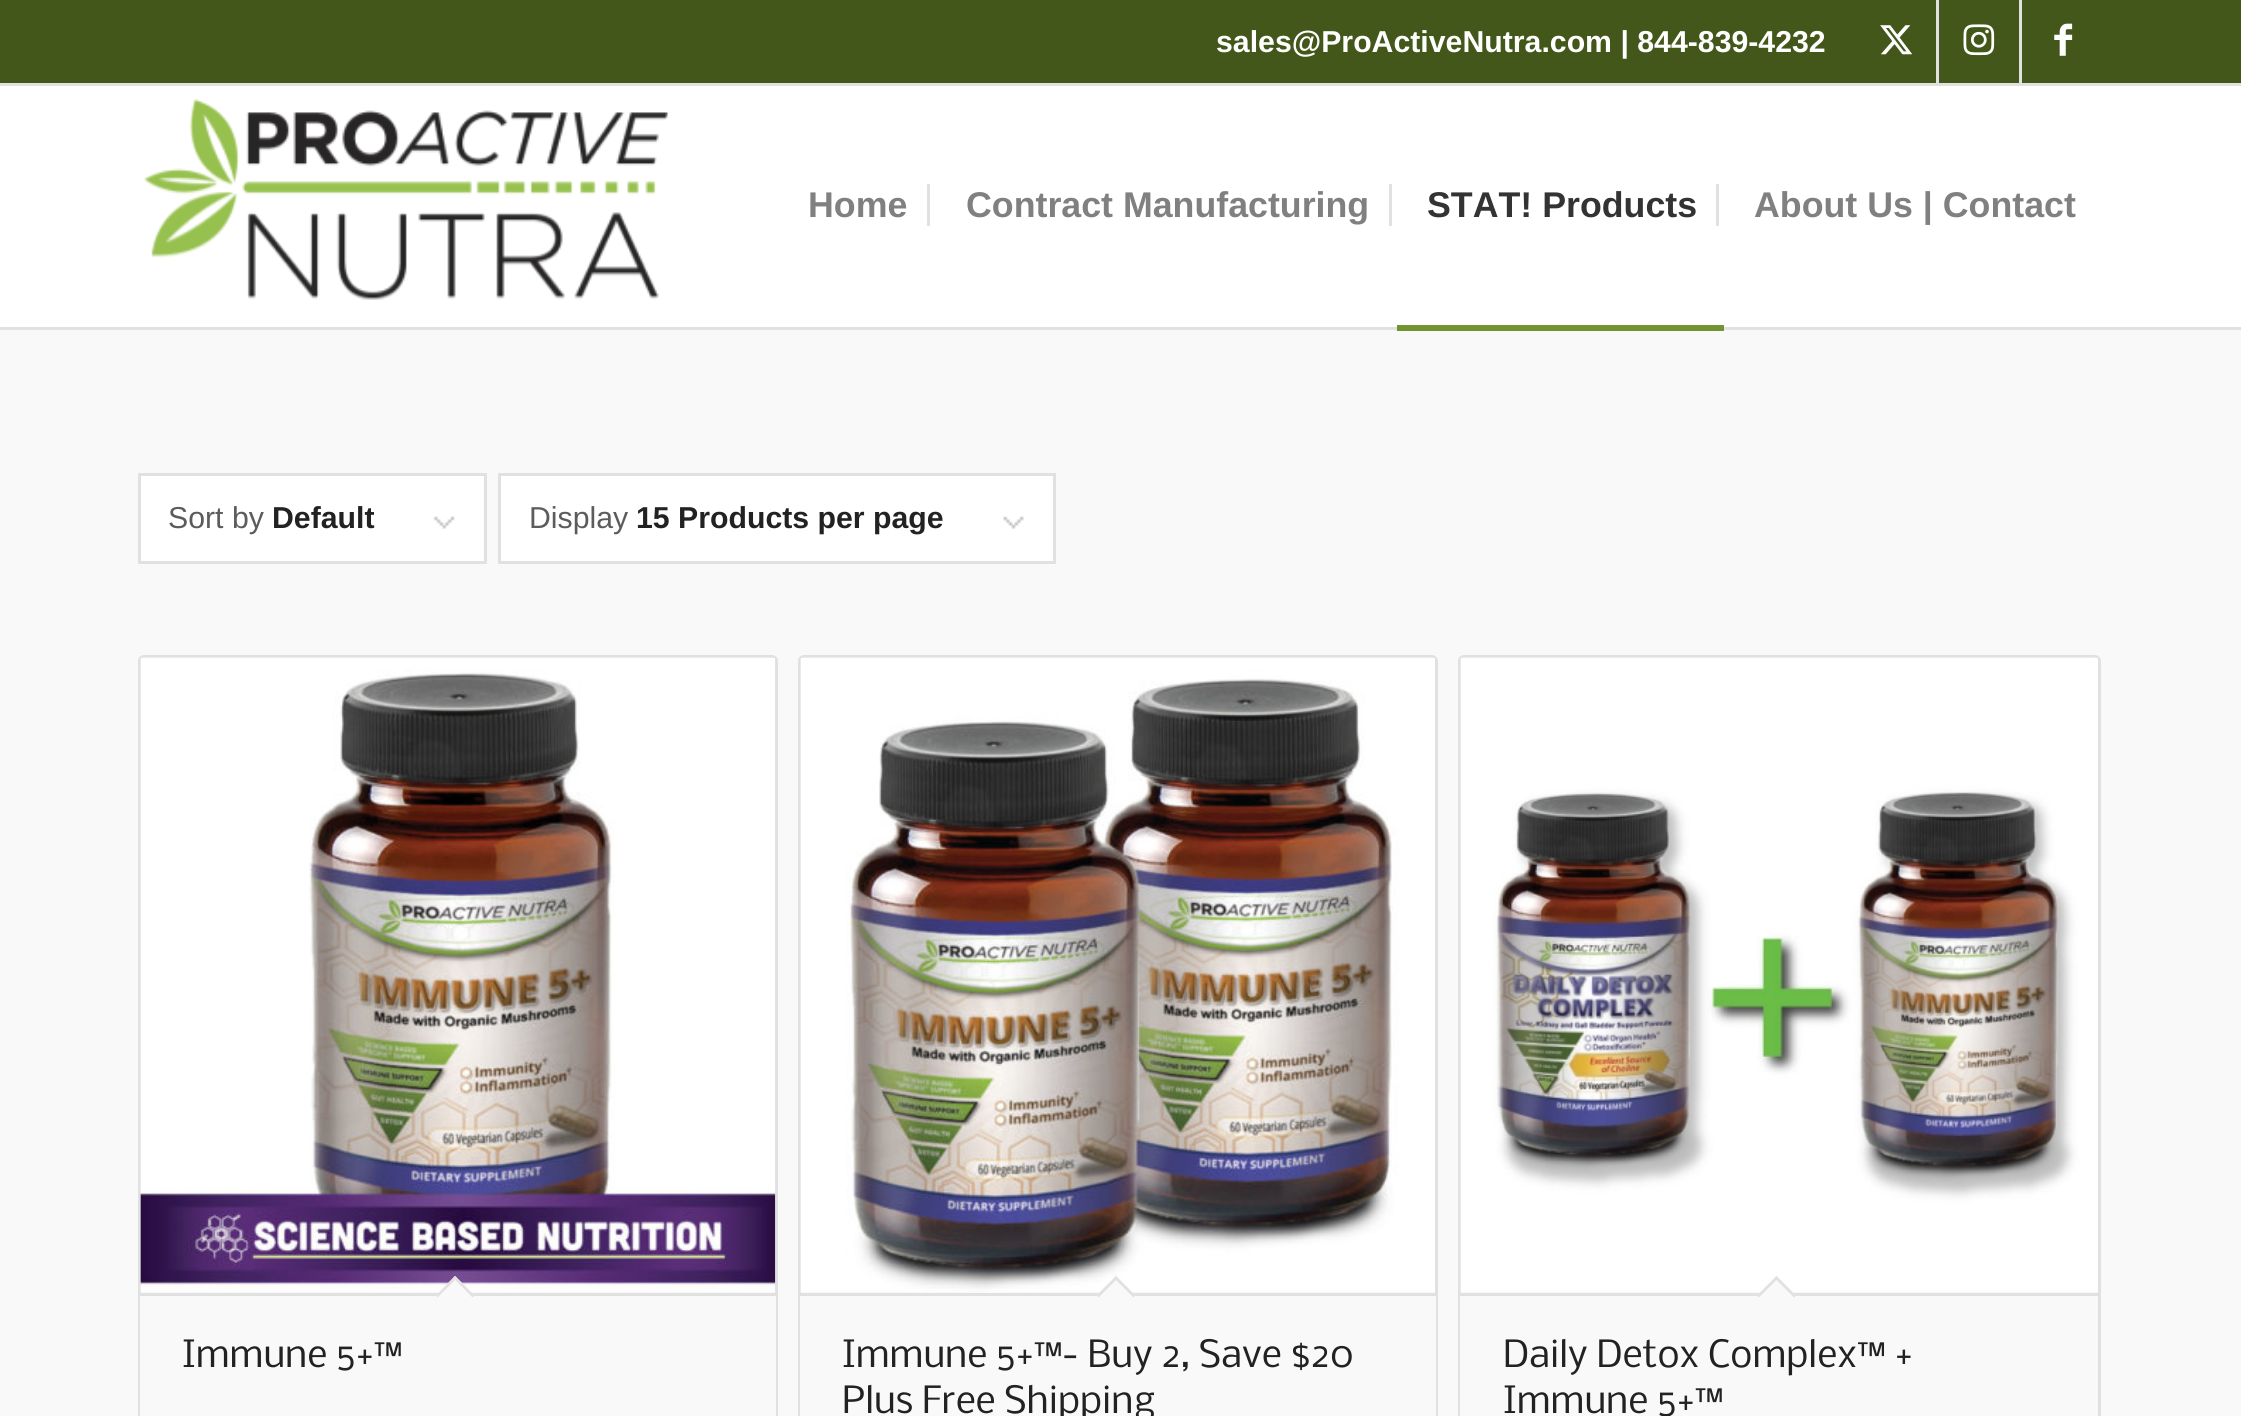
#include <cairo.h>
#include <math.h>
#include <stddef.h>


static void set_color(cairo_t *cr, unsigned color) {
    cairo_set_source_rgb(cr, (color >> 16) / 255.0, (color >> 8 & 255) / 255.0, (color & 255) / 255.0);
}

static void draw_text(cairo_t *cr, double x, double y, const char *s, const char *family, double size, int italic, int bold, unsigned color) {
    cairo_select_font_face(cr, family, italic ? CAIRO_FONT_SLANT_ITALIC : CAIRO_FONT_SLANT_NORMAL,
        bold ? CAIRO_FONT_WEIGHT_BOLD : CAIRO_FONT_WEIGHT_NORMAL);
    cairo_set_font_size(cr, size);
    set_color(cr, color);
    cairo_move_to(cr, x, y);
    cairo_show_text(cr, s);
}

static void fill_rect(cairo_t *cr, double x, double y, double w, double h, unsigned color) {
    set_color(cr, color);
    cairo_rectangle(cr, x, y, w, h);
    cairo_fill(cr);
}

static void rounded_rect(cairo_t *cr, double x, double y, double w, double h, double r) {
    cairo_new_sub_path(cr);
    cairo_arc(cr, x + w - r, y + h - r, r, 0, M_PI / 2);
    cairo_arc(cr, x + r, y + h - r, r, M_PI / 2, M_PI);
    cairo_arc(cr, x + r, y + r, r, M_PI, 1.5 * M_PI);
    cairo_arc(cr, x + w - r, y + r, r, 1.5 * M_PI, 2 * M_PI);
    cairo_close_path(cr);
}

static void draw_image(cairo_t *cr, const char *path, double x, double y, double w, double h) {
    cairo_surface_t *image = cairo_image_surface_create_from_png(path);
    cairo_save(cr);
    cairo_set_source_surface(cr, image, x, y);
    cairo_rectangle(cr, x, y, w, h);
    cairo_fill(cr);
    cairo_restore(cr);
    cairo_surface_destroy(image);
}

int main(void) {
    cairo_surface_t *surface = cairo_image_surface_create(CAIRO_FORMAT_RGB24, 2241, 1416);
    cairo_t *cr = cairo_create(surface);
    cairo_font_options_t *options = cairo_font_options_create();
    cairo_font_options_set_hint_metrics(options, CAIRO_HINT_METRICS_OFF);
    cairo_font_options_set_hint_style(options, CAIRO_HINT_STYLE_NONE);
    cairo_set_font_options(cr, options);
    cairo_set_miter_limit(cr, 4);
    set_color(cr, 0xF9F9F9);
    cairo_paint(cr);
    fill_rect(cr, 0, 0, 2241, 83, 0x425719);
    fill_rect(cr, 0, 83, 2241, 3, 0xE1E1E1);
    draw_text(cr, 1216, 52, "sales@ProActiveNutra.com | 844-839-4232", "Liberation Sans", 30.25, 0, 1, 0xFFFFFF);
    fill_rect(cr, 1936, 0, 3, 83, 0xE1E1E1);
    draw_image(cr, "assets/img1.png", 1880, 25, 33, 30);
    fill_rect(cr, 2019, 0, 3, 83, 0xE1E1E1);
    draw_image(cr, "assets/img2.png", 1963, 24, 32, 32);
    draw_image(cr, "assets/img3.png", 2054, 23, 19, 33);
    fill_rect(cr, 0, 86, 2241, 241, 0xFFFFFF);
    fill_rect(cr, 0, 327, 2241, 3, 0xE1E1E1);
    draw_image(cr, "assets/img4.png", 144, 99, 524, 201);
    draw_text(cr, 808, 217, "Home", "Liberation Sans", 35.75, 0, 1, 0x808080);
    draw_text(cr, 966, 217, "Contract Manufacturing", "Liberation Sans", 35.75, 0, 1, 0x808080);
    fill_rect(cr, 927, 184, 3, 42, 0xE1E1E1);
    draw_text(cr, 1427, 217, "STAT! Products", "Liberation Sans", 35.75, 0, 1, 0x333333);
    fill_rect(cr, 1389, 184, 3, 42, 0xE1E1E1);
    fill_rect(cr, 1397, 325, 327, 6, 0x719430);
    draw_text(cr, 1754, 217, "About Us | Contact", "Liberation Sans", 35.75, 0, 1, 0x808080);
    fill_rect(cr, 1716, 184, 3, 42, 0xE1E1E1);
    fill_rect(cr, 141, 476, 343, 85, 0xFFFFFF);
    draw_image(cr, "assets/img5.png", 433, 516, 22, 13);
    cairo_rectangle(cr, 139.5, 474.5, 346, 88);
    set_color(cr, 0xE1E1E1);
    cairo_set_line_width(cr, 3);
    cairo_stroke(cr);
    draw_text(cr, 168, 528, "Sort by", "Liberation Sans", 30.25, 0, 0, 0x5C5C5C);
    draw_text(cr, 272, 528, "Default", "Liberation Sans", 30.25, 0, 1, 0x222222);
    fill_rect(cr, 501, 476, 552, 85, 0xFFFFFF);
    draw_image(cr, "assets/img6.png", 1003, 516, 21, 13);
    cairo_rectangle(cr, 499.5, 474.5, 555, 88);
    set_color(cr, 0xE1E1E1);
    cairo_stroke(cr);
    draw_text(cr, 529, 528, "Display", "Liberation Sans", 30.25, 0, 0, 0x5C5C5C);
    draw_text(cr, 636, 528, "15 Products per page", "Liberation Sans", 30.25, 0, 1, 0x222222);
    rounded_rect(cr, 139.5, 656.5, 637, 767, 4.5);
    set_color(cr, 0xE1E1E1);
    cairo_stroke(cr);
    draw_image(cr, "assets/img7.png", 140, 657, 636, 635);
    fill_rect(cr, 140, 1296, 636, 120, 0xF9F9F9);
    fill_rect(cr, 140, 1293, 636, 3, 0xE1E1E1);
    set_color(cr, 0xF9F9F9);
    cairo_new_path(cr);
    cairo_move_to(cr, 455, 1276);
    cairo_line_to(cr, 474.5, 1295.5);
    cairo_line_to(cr, 455, 1315);
    cairo_line_to(cr, 436, 1295.5);
    cairo_close_path(cr);
    cairo_fill(cr);
    set_color(cr, 0xE1E1E1);
    cairo_new_path(cr);
    cairo_move_to(cr, 455, 1276);
    cairo_line_to(cr, 474.5, 1295.5);
    cairo_line_to(cr, 472.5, 1297.5);
    cairo_line_to(cr, 453.5, 1278);
    cairo_close_path(cr);
    cairo_fill(cr);
    cairo_new_path(cr);
    cairo_move_to(cr, 455, 1276);
    cairo_line_to(cr, 457, 1278);
    cairo_line_to(cr, 437.5, 1297.5);
    cairo_line_to(cr, 436, 1295.5);
    cairo_close_path(cr);
    cairo_fill(cr);
    draw_text(cr, 182, 1367, "Immune 5+™", "Nobile", 35.75, 0, 0, 0x222222);
    rounded_rect(cr, 799.5, 656.5, 637, 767, 4.5);
    set_color(cr, 0xE1E1E1);
    cairo_stroke(cr);
    draw_image(cr, "assets/img8.png", 800, 657, 635, 635);
    fill_rect(cr, 800, 1296, 636, 120, 0xF9F9F9);
    fill_rect(cr, 800, 1293, 636, 3, 0xE1E1E1);
    set_color(cr, 0xF9F9F9);
    cairo_new_path(cr);
    cairo_move_to(cr, 1116, 1276);
    cairo_line_to(cr, 1135.5, 1295.5);
    cairo_line_to(cr, 1116, 1315);
    cairo_line_to(cr, 1096.5, 1295.5);
    cairo_close_path(cr);
    cairo_fill(cr);
    set_color(cr, 0xE1E1E1);
    cairo_new_path(cr);
    cairo_move_to(cr, 1116, 1276);
    cairo_line_to(cr, 1135.5, 1295.5);
    cairo_line_to(cr, 1133.5, 1297.5);
    cairo_line_to(cr, 1114, 1278);
    cairo_close_path(cr);
    cairo_fill(cr);
    cairo_new_path(cr);
    cairo_move_to(cr, 1116, 1276);
    cairo_line_to(cr, 1118, 1278);
    cairo_line_to(cr, 1098.5, 1297.5);
    cairo_line_to(cr, 1096.5, 1295.5);
    cairo_close_path(cr);
    cairo_fill(cr);
    draw_text(cr, 842, 1367, "Immune 5+™- Buy 2, Save $20", "Nobile", 35.75, 0, 0, 0x222222);
    draw_text(cr, 842, 1413, "Plus Free Shipping", "Nobile", 35.75, 0, 0, 0x222222);
    rounded_rect(cr, 1459.5, 656.5, 640, 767, 4.5);
    set_color(cr, 0xE1E1E1);
    cairo_stroke(cr);
    draw_image(cr, "assets/img9.png", 1460, 657, 638, 635);
    fill_rect(cr, 1460, 1296, 1, 120, 0xF9F9F9);
    fill_rect(cr, 1460, 1293, 638, 3, 0xE1E1E1);
    set_color(cr, 0xF9F9F9);
    cairo_new_path(cr);
    cairo_move_to(cr, 1776.5, 1276);
    cairo_line_to(cr, 1796, 1295.5);
    cairo_line_to(cr, 1776.5, 1315);
    cairo_line_to(cr, 1757, 1295.5);
    cairo_close_path(cr);
    cairo_fill(cr);
    set_color(cr, 0xE1E1E1);
    cairo_new_path(cr);
    cairo_move_to(cr, 1776.5, 1276);
    cairo_line_to(cr, 1796, 1295.5);
    cairo_line_to(cr, 1794, 1297.5);
    cairo_line_to(cr, 1774.5, 1278);
    cairo_close_path(cr);
    cairo_fill(cr);
    cairo_new_path(cr);
    cairo_move_to(cr, 1776.5, 1276);
    cairo_line_to(cr, 1778.5, 1278);
    cairo_line_to(cr, 1759, 1297.5);
    cairo_line_to(cr, 1757, 1295.5);
    cairo_close_path(cr);
    cairo_fill(cr);
    draw_text(cr, 1503, 1367, "Daily Detox Complex™ +", "Nobile", 35.75, 0, 0, 0x222222);
    draw_text(cr, 1503, 1413, "Immune 5+™", "Nobile", 35.75, 0, 0, 0x222222);
    cairo_surface_write_to_png(surface, "output.png");
    cairo_font_options_destroy(options);
    cairo_destroy(cr);
    cairo_surface_destroy(surface);
    return 0;
}
